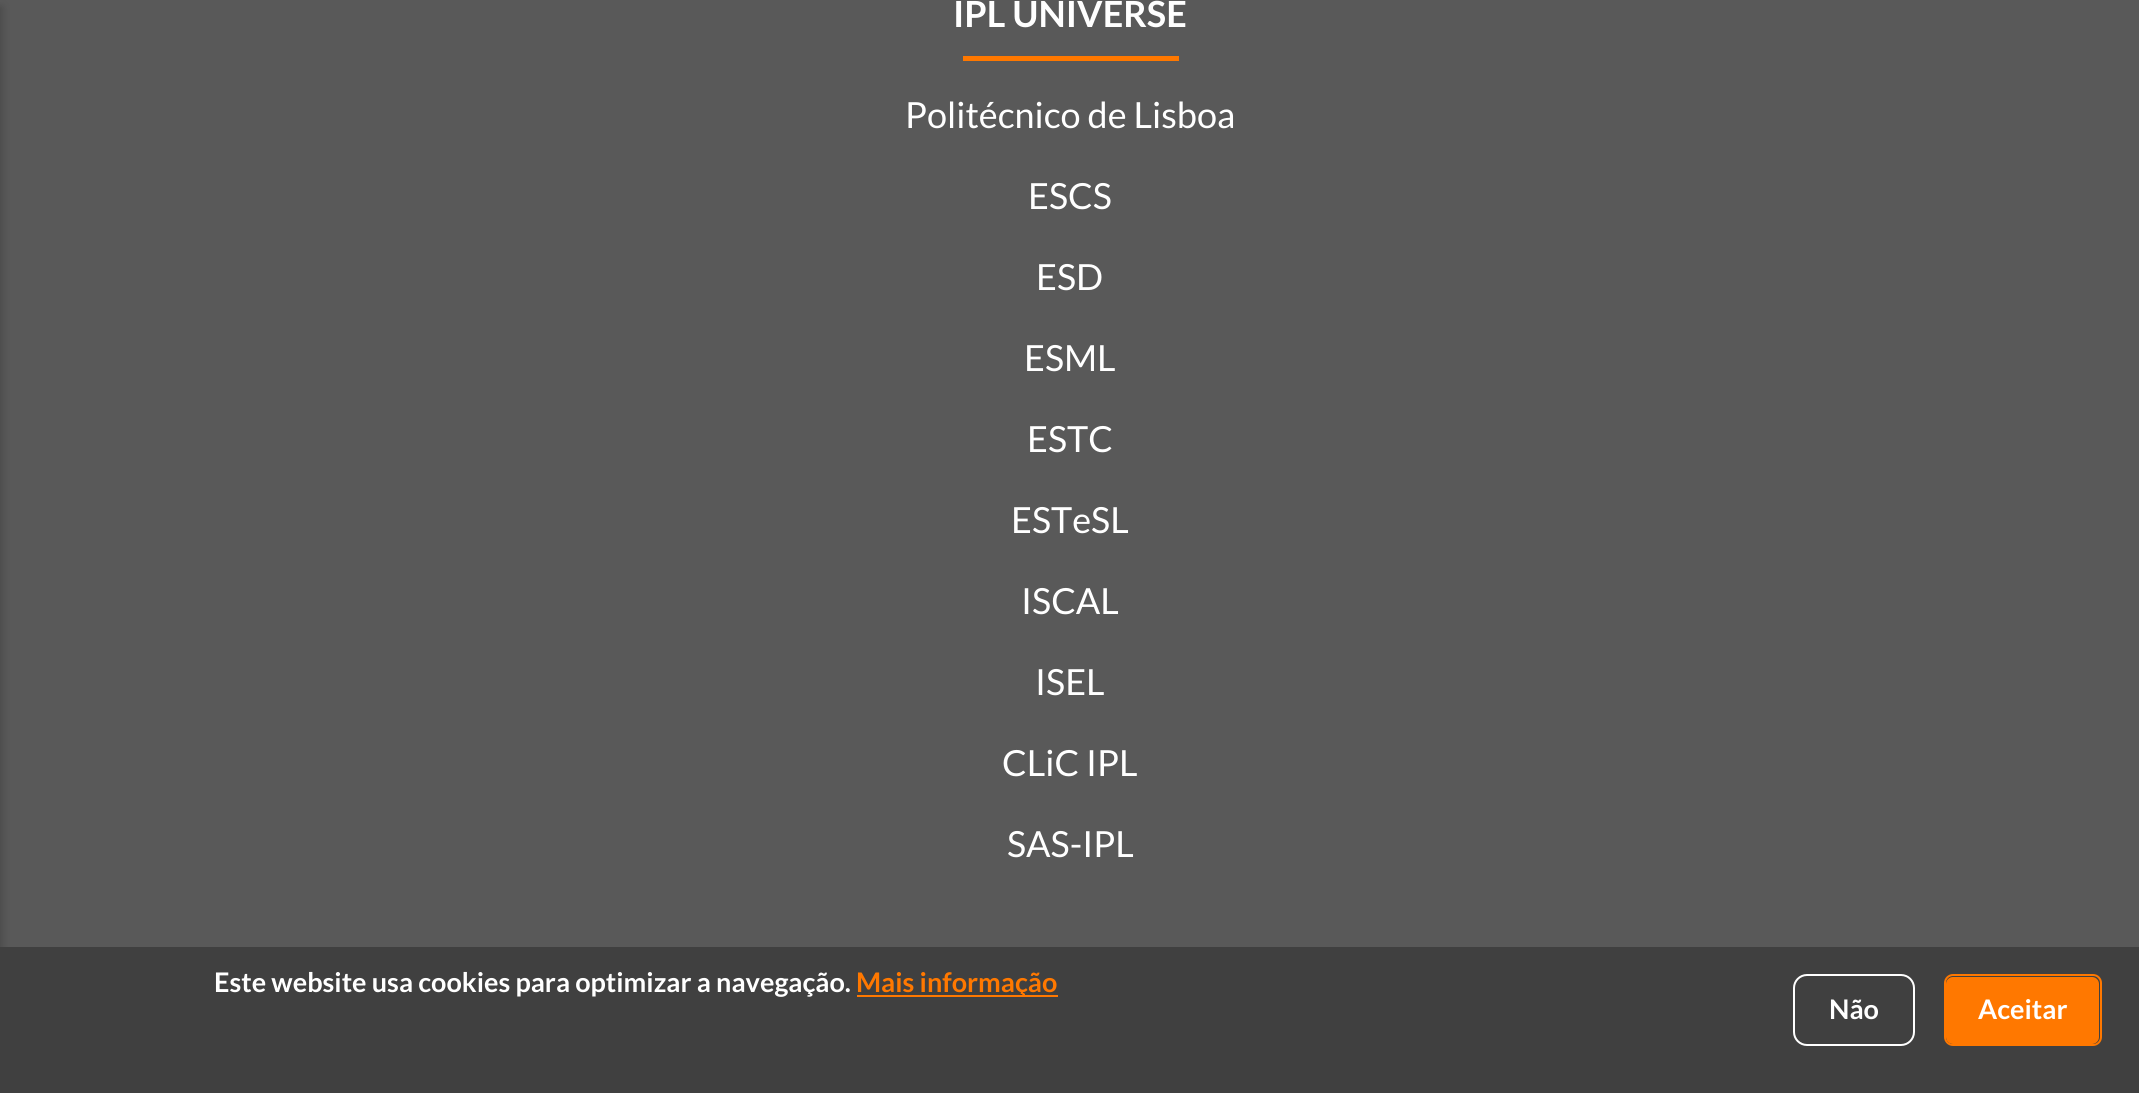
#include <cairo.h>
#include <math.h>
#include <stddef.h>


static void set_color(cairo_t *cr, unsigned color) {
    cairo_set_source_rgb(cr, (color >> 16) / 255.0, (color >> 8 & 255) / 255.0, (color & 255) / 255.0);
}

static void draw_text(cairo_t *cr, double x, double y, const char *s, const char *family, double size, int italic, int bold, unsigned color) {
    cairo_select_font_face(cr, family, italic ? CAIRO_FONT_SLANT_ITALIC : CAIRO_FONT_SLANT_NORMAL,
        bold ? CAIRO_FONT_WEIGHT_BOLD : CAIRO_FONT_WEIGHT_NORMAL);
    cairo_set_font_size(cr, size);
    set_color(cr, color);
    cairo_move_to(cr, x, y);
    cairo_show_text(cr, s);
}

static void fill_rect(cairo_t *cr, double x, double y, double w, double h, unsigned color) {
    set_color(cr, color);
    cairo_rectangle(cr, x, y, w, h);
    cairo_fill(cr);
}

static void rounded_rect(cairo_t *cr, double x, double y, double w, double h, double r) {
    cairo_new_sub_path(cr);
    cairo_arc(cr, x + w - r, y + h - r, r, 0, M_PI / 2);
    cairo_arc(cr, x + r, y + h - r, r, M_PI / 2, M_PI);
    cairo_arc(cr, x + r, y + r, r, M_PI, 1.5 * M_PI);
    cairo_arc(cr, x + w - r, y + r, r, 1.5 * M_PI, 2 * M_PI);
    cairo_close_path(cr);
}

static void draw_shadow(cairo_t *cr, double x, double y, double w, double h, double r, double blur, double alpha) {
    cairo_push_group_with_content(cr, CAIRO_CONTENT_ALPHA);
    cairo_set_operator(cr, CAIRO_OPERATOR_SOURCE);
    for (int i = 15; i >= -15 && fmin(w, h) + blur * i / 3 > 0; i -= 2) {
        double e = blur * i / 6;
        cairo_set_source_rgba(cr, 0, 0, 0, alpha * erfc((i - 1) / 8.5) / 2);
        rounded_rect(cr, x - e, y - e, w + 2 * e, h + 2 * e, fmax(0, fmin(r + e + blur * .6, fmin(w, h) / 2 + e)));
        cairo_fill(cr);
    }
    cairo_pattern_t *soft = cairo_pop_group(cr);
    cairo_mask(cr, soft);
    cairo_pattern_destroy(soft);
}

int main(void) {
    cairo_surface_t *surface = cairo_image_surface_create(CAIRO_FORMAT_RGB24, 2139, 1093);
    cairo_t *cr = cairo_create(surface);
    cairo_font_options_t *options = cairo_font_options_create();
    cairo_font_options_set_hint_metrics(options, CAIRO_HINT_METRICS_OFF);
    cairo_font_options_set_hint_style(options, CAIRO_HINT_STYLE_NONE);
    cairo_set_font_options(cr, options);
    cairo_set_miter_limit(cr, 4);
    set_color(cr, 0x595959);
    cairo_paint(cr);
    set_color(cr, 0x000000);
    draw_shadow(cr, -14, 7, 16, 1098, 0, 4.5, 0.2);
    draw_text(cr, 953, 27, "IPL UNIVERSE", "Lato", 36, 0, 1, 0xFFFFFF);
    fill_rect(cr, 963, 56, 216, 5, 0xFF7800);
    draw_text(cr, 905, 128, "Politécnico de Lisboa", "Lato", 36, 0, 0, 0xFFFFFF);
    draw_text(cr, 1028, 209, "ESCS", "Lato", 36, 0, 0, 0xFFFFFF);
    draw_text(cr, 1036, 290, "ESD", "Lato", 36, 0, 0, 0xFFFFFF);
    draw_text(cr, 1024, 371, "ESML", "Lato", 36, 0, 0, 0xFFFFFF);
    draw_text(cr, 1027, 452, "ESTC", "Lato", 36, 0, 0, 0xFFFFFF);
    draw_text(cr, 1011, 533, "ESTeSL", "Lato", 36, 0, 0, 0xFFFFFF);
    draw_text(cr, 1021, 614, "ISCAL", "Lato", 36, 0, 0, 0xFFFFFF);
    draw_text(cr, 1035, 695, "ISEL", "Lato", 36, 0, 0, 0xFFFFFF);
    draw_text(cr, 1002, 776, "CLiC IPL", "Lato", 36, 0, 0, 0xFFFFFF);
    draw_text(cr, 1007, 857, "SAS-IPL", "Lato", 36, 0, 0, 0xFFFFFF);
    fill_rect(cr, 0, 947, 2139, 146, 0x404040);
    draw_text(cr, 214, 992, "Este website usa cookies para optimizar a navegação.", "Lato", 27, 0, 1, 0xFFFFFF);
    fill_rect(cr, 857, 995, 201, 2, 0xFF7800);
    draw_text(cr, 856, 992, "Mais informação", "Lato", 27, 0, 1, 0xFF7800);
    rounded_rect(cr, 1794, 975, 120, 70, 13);
    set_color(cr, 0xFFFFFF);
    cairo_stroke(cr);
    draw_text(cr, 1829, 1019, "Não", "Lato", 27, 0, 1, 0xFFFFFF);
    set_color(cr, 0xFF7800);
    rounded_rect(cr, 1946, 977, 153, 67, 7);
    cairo_fill(cr);
    rounded_rect(cr, 1945, 975, 156, 70, 8);
    cairo_stroke(cr);
    draw_text(cr, 1978, 1019, "Aceitar", "Lato", 27, 0, 1, 0xFFFFFF);
    cairo_surface_write_to_png(surface, "output.png");
    cairo_font_options_destroy(options);
    cairo_destroy(cr);
    cairo_surface_destroy(surface);
    return 0;
}
